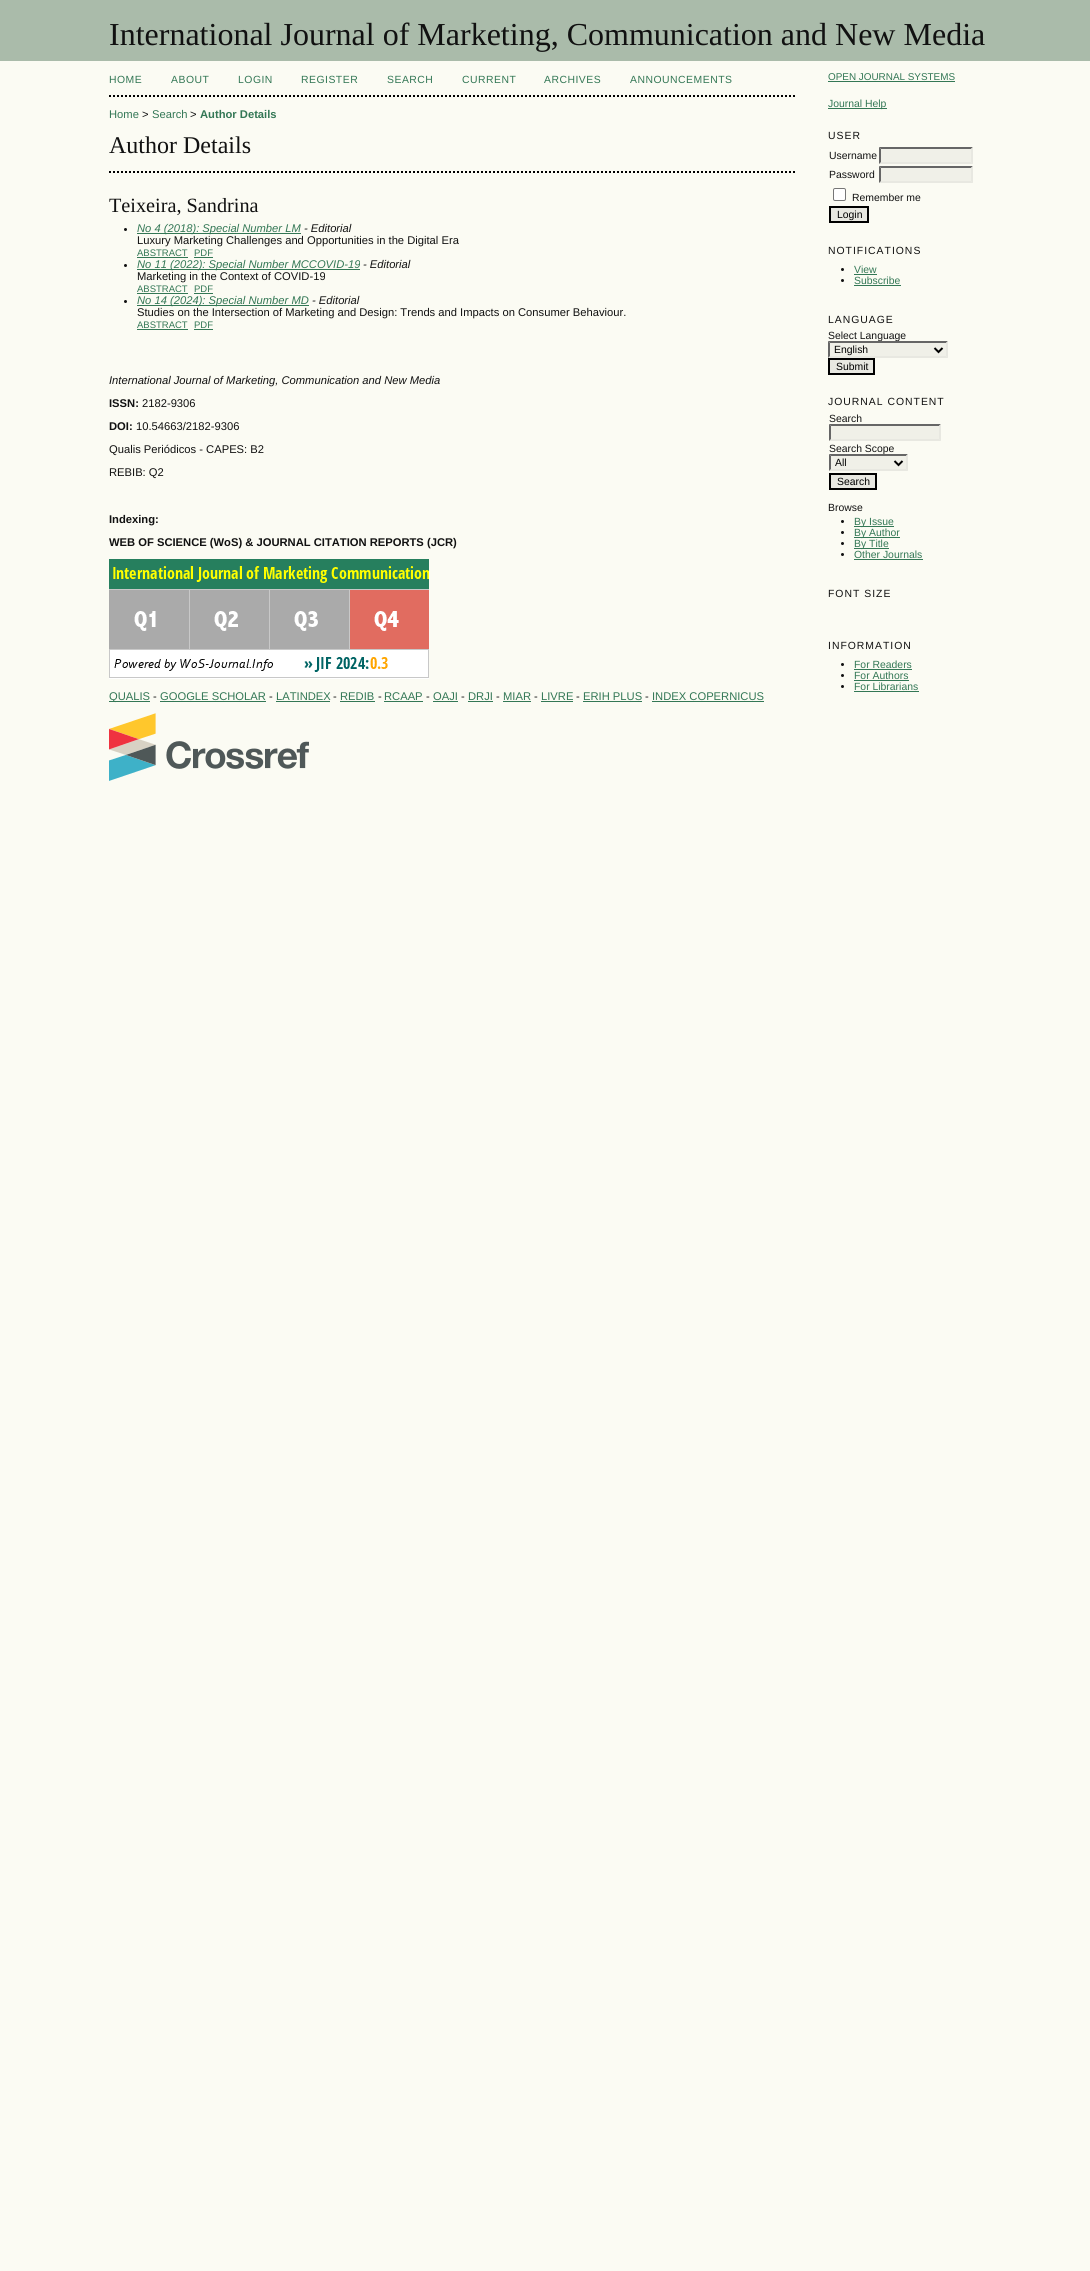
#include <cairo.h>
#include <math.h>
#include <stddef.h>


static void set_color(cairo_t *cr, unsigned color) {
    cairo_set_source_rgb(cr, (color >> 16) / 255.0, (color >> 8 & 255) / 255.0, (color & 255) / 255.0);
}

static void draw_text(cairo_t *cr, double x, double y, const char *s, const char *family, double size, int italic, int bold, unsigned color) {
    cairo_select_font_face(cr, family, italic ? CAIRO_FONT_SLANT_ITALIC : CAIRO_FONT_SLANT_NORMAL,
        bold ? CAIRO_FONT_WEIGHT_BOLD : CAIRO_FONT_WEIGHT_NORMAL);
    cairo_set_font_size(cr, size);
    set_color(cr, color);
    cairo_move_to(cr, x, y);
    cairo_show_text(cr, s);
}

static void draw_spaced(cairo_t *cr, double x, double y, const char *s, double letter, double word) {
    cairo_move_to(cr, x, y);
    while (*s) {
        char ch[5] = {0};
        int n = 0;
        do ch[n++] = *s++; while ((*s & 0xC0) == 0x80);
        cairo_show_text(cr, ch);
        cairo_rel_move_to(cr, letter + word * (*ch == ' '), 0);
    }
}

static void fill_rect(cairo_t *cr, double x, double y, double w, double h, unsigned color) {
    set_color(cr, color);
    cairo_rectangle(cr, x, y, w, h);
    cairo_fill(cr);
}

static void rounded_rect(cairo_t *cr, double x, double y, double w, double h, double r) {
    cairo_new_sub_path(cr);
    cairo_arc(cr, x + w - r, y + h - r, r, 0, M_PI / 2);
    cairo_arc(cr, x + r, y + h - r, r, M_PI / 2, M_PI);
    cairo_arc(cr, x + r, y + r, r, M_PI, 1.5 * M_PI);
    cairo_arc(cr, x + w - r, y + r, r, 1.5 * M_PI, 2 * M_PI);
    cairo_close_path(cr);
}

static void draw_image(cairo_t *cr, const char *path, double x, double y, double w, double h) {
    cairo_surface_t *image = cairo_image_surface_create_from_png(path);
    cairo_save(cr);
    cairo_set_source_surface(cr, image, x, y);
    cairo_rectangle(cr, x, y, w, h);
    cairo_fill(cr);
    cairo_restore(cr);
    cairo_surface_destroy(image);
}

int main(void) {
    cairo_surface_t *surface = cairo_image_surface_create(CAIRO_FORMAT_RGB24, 1090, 2271);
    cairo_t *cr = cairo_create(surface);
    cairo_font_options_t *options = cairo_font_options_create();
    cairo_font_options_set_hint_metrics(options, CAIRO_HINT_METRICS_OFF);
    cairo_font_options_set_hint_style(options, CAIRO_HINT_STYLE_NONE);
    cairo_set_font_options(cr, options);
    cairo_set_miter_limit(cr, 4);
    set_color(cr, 0xFBFBF3);
    cairo_paint(cr);
    fill_rect(cr, 0, 0, 1090, 61, 0xAABBAA);
    draw_text(cr, 109, 45, "International Journal of Marketing, Communication and New Media", "Liberation Serif", 32, 0, 0, 0x111111);
    cairo_new_path(cr);
    cairo_move_to(cr, 109, 96);
    cairo_line_to(cr, 796, 96);
    set_color(cr, 0x000000);
    cairo_set_dash(cr, (double[]){2, 2}, 2, 0);
    cairo_stroke(cr);
    cairo_select_font_face(cr, "Liberation Sans", CAIRO_FONT_SLANT_NORMAL, CAIRO_FONT_WEIGHT_NORMAL);
    cairo_set_font_size(cr, 10.4);
    set_color(cr, 0x337755);
    draw_spaced(cr, 109, 83, "HOME", 0.5, 0);
    draw_spaced(cr, 171, 83, "ABOUT", 0.5, 0);
    draw_spaced(cr, 238, 83, "LOGIN", 0.5, 0);
    draw_spaced(cr, 301, 83, "REGISTER", 0.5, 0);
    draw_spaced(cr, 387, 83, "SEARCH", 0.5, 0);
    draw_spaced(cr, 462, 83, "CURRENT", 0.5, 0);
    draw_spaced(cr, 544, 83, "ARCHIVES", 0.5, 0);
    draw_spaced(cr, 630, 83, "ANNOUNCEMENTS", 0.5, 0);
    draw_text(cr, 109, 118, "Home", "Liberation Sans", 11.2, 0, 0, 0x337755);
    draw_text(cr, 142, 118, ">", "Liberation Sans", 11.2, 0, 0, 0x111111);
    draw_text(cr, 152, 118, "Search", "Liberation Sans", 11.2, 0, 0, 0x337755);
    draw_text(cr, 190, 118, ">", "Liberation Sans", 11.2, 0, 0, 0x111111);
    draw_text(cr, 200, 118, "Author Details", "Liberation Sans", 11.2, 0, 1, 0x337755);
    draw_text(cr, 109, 153, "Author Details", "Liberation Serif", 24, 0, 0, 0x111111);
    cairo_new_path(cr);
    cairo_move_to(cr, 109, 172);
    cairo_line_to(cr, 796, 172);
    set_color(cr, 0x000000);
    cairo_stroke(cr);
    draw_text(cr, 109, 212, "Teixeira, Sandrina", "Liberation Serif", 20.25, 0, 0, 0x111111);
    cairo_new_path(cr);
    cairo_arc(cr, 125.5, 229.5, 1.5, 0, 2 * M_PI);
    cairo_fill(cr);
    fill_rect(cr, 137, 233, 164, 1, 0x337755);
    draw_text(cr, 137, 232, "No 4 (2018): Special Number LM", "Liberation Sans", 11.2, 1, 0, 0x337755);
    draw_text(cr, 304, 232, "- Editorial", "Liberation Sans", 11.2, 1, 0, 0x111111);
    draw_text(cr, 137, 244, "Luxury Marketing Challenges and Opportunities in the Digital Era", "Liberation Sans", 11.2, 0, 0, 0x111111);
    draw_text(cr, 137, 256, "ABSTRACT", "Liberation Sans", 9.5, 0, 0, 0x337755);
    fill_rect(cr, 137, 257, 51, 1, 0x337755);
    draw_text(cr, 194, 256, "PDF", "Liberation Sans", 9.5, 0, 0, 0x337755);
    fill_rect(cr, 194, 257, 19, 1, 0x337755);
    set_color(cr, 0x111111);
    cairo_new_path(cr);
    cairo_arc(cr, 125.5, 265.5, 1.5, 0, 2 * M_PI);
    cairo_fill(cr);
    fill_rect(cr, 137, 269, 223, 1, 0x337755);
    draw_text(cr, 137, 268, "No 11 (2022): Special Number MCCOVID-19", "Liberation Sans", 11.2, 1, 0, 0x337755);
    draw_text(cr, 363, 268, "- Editorial", "Liberation Sans", 11.2, 1, 0, 0x111111);
    draw_text(cr, 137, 280, "Marketing in the Context of COVID-19", "Liberation Sans", 11.2, 0, 0, 0x111111);
    draw_text(cr, 137, 292, "ABSTRACT", "Liberation Sans", 9.5, 0, 0, 0x337755);
    fill_rect(cr, 137, 293, 51, 1, 0x337755);
    draw_text(cr, 194, 292, "PDF", "Liberation Sans", 9.5, 0, 0, 0x337755);
    fill_rect(cr, 194, 293, 19, 1, 0x337755);
    set_color(cr, 0x111111);
    cairo_new_path(cr);
    cairo_arc(cr, 125.5, 301.5, 1.5, 0, 2 * M_PI);
    cairo_fill(cr);
    fill_rect(cr, 137, 305, 172, 1, 0x337755);
    draw_text(cr, 137, 304, "No 14 (2024): Special Number MD", "Liberation Sans", 11.2, 1, 0, 0x337755);
    draw_text(cr, 312, 304, "- Editorial", "Liberation Sans", 11.2, 1, 0, 0x111111);
    draw_text(cr, 137, 316, "Studies on the Intersection of Marketing and Design: Trends and Impacts on Consumer Behaviour.", "Liberation Sans", 11.2, 0, 0, 0x111111);
    draw_text(cr, 137, 328, "ABSTRACT", "Liberation Sans", 9.5, 0, 0, 0x337755);
    fill_rect(cr, 137, 329, 51, 1, 0x337755);
    draw_text(cr, 194, 328, "PDF", "Liberation Sans", 9.5, 0, 0, 0x337755);
    fill_rect(cr, 194, 329, 19, 1, 0x337755);
    draw_text(cr, 109, 384, "International Journal of Marketing, Communication and New Media", "Liberation Sans", 11.2, 1, 0, 0x111111);
    draw_text(cr, 109, 407, "ISSN:", "Liberation Sans", 11.2, 0, 1, 0x111111);
    draw_text(cr, 142, 407, "2182-9306", "Liberation Sans", 11.2, 0, 0, 0x111111);
    draw_text(cr, 109, 430, "DOI:", "Liberation Sans", 11.2, 0, 1, 0x111111);
    draw_text(cr, 136, 430, "10.54663/2182-9306", "Liberation Sans", 11.2, 0, 0, 0x111111);
    draw_text(cr, 109, 453, "Qualis Periódicos - CAPES: B2", "Liberation Sans", 11.2, 0, 0, 0x111111);
    draw_text(cr, 109, 476, "REBIB: Q2", "Liberation Sans", 11.2, 0, 0, 0x111111);
    draw_text(cr, 109, 523, "Indexing:", "Liberation Sans", 11.2, 0, 1, 0x111111);
    draw_text(cr, 109, 546, "WEB OF SCIENCE (WoS) & JOURNAL CITATION REPORTS (JCR)", "Liberation Sans", 11.2, 0, 1, 0x111111);
    draw_image(cr, "assets/img1.png", 109, 559, 320, 120);
    fill_rect(cr, 109, 701, 41, 1, 0x337755);
    draw_text(cr, 109, 700, "QUALIS", "Liberation Sans", 11.2, 0, 0, 0x337755);
    draw_text(cr, 153, 700, "-", "Liberation Sans", 11.2, 0, 0, 0x111111);
    draw_text(cr, 160, 700, "GOOGLE SCHOLAR", "Liberation Sans", 11.2, 0, 0, 0x337755);
    fill_rect(cr, 160, 701, 106, 1, 0x337755);
    draw_text(cr, 269, 700, "-", "Liberation Sans", 11.2, 0, 0, 0x111111);
    draw_text(cr, 276, 700, "LATINDEX", "Liberation Sans", 11.2, 0, 0, 0x337755);
    fill_rect(cr, 276, 701, 54, 1, 0x337755);
    draw_text(cr, 333, 700, "-", "Liberation Sans", 11.2, 0, 0, 0x111111);
    draw_text(cr, 340, 700, "REDIB", "Liberation Sans", 11.2, 0, 0, 0x337755);
    fill_rect(cr, 340, 701, 35, 1, 0x337755);
    draw_text(cr, 378, 700, "-", "Liberation Sans", 11.2, 0, 0, 0x111111);
    draw_text(cr, 384, 700, "RCAAP", "Liberation Sans", 11.2, 0, 0, 0x337755);
    fill_rect(cr, 384, 701, 39, 1, 0x337755);
    draw_text(cr, 426, 700, "-", "Liberation Sans", 11.2, 0, 0, 0x111111);
    draw_text(cr, 433, 700, "OAJI", "Liberation Sans", 11.2, 0, 0, 0x337755);
    fill_rect(cr, 433, 701, 25, 1, 0x337755);
    draw_text(cr, 461, 700, "-", "Liberation Sans", 11.2, 0, 0, 0x111111);
    draw_text(cr, 468, 700, "DRJI", "Liberation Sans", 11.2, 0, 0, 0x337755);
    fill_rect(cr, 468, 701, 25, 1, 0x337755);
    draw_text(cr, 496, 700, "-", "Liberation Sans", 11.2, 0, 0, 0x111111);
    draw_text(cr, 503, 700, "MIAR", "Liberation Sans", 11.2, 0, 0, 0x337755);
    fill_rect(cr, 503, 701, 28, 1, 0x337755);
    draw_text(cr, 534, 700, "-", "Liberation Sans", 11.2, 0, 0, 0x111111);
    draw_text(cr, 541, 700, "LIVRE", "Liberation Sans", 11.2, 0, 0, 0x337755);
    fill_rect(cr, 541, 701, 32, 1, 0x337755);
    draw_text(cr, 576, 700, "-", "Liberation Sans", 11.2, 0, 0, 0x111111);
    draw_text(cr, 583, 700, "ERIH PLUS", "Liberation Sans", 11.2, 0, 0, 0x337755);
    fill_rect(cr, 583, 701, 59, 1, 0x337755);
    draw_text(cr, 645, 700, "-", "Liberation Sans", 11.2, 0, 0, 0x111111);
    draw_text(cr, 652, 700, "INDEX COPERNICUS", "Liberation Sans", 11.2, 0, 0, 0x337755);
    fill_rect(cr, 652, 701, 112, 1, 0x337755);
    draw_image(cr, "assets/img2.png", 109, 713, 200, 68);
    draw_text(cr, 828, 80, "OPEN JOURNAL SYSTEMS", "Liberation Sans", 9.9, 0, 0, 0x337755);
    fill_rect(cr, 828, 81, 127, 1, 0x337755);
    fill_rect(cr, 828, 108, 59, 1, 0x337755);
    draw_text(cr, 828, 107, "Journal Help", "Liberation Sans", 10.4, 0, 0, 0x337755);
    set_color(cr, 0x111111);
    draw_spaced(cr, 828, 139, "USER", 1, 0);
    draw_text(cr, 829, 159, "Username", "Liberation Sans", 10.4, 0, 0, 0x111111);
    fill_rect(cr, 879, 147, 94, 17, 0xF0F0E8);
    set_color(cr, 0x666666);
    cairo_new_path(cr);
    cairo_move_to(cr, 879, 147);
    cairo_line_to(cr, 973, 147);
    cairo_line_to(cr, 971, 149);
    cairo_line_to(cr, 881, 149);
    cairo_close_path(cr);
    cairo_fill(cr);
    set_color(cr, 0xE8E8E1);
    cairo_new_path(cr);
    cairo_move_to(cr, 973, 147);
    cairo_line_to(cr, 973, 164);
    cairo_line_to(cr, 971, 162);
    cairo_line_to(cr, 971, 149);
    cairo_close_path(cr);
    cairo_fill(cr);
    cairo_new_path(cr);
    cairo_move_to(cr, 973, 164);
    cairo_line_to(cr, 879, 164);
    cairo_line_to(cr, 881, 162);
    cairo_line_to(cr, 971, 162);
    cairo_close_path(cr);
    cairo_fill(cr);
    set_color(cr, 0x666666);
    cairo_new_path(cr);
    cairo_move_to(cr, 879, 164);
    cairo_line_to(cr, 879, 147);
    cairo_line_to(cr, 881, 149);
    cairo_line_to(cr, 881, 162);
    cairo_close_path(cr);
    cairo_fill(cr);
    draw_text(cr, 829, 178, "Password", "Liberation Sans", 10.4, 0, 0, 0x111111);
    fill_rect(cr, 879, 166, 94, 17, 0xF0F0E8);
    set_color(cr, 0x666666);
    cairo_new_path(cr);
    cairo_move_to(cr, 879, 166);
    cairo_line_to(cr, 973, 166);
    cairo_line_to(cr, 971, 168);
    cairo_line_to(cr, 881, 168);
    cairo_close_path(cr);
    cairo_fill(cr);
    set_color(cr, 0xE8E8E1);
    cairo_new_path(cr);
    cairo_move_to(cr, 973, 166);
    cairo_line_to(cr, 973, 183);
    cairo_line_to(cr, 971, 181);
    cairo_line_to(cr, 971, 168);
    cairo_close_path(cr);
    cairo_fill(cr);
    cairo_new_path(cr);
    cairo_move_to(cr, 973, 183);
    cairo_line_to(cr, 879, 183);
    cairo_line_to(cr, 881, 181);
    cairo_line_to(cr, 971, 181);
    cairo_close_path(cr);
    cairo_fill(cr);
    set_color(cr, 0x666666);
    cairo_new_path(cr);
    cairo_move_to(cr, 879, 183);
    cairo_line_to(cr, 879, 166);
    cairo_line_to(cr, 881, 168);
    cairo_line_to(cr, 881, 181);
    cairo_close_path(cr);
    cairo_fill(cr);
    set_color(cr, 0xFFFFFF);
    rounded_rect(cr, 833.5, 188.5, 12, 12, 1.5);
    cairo_fill_preserve(cr);
    set_color(cr, 0x767676);
    cairo_set_line_width(cr, 1);
    cairo_set_dash(cr, NULL, 0, 0);
    cairo_stroke(cr);
    draw_text(cr, 852, 201, "Remember me", "Liberation Sans", 10.4, 0, 0, 0x111111);
    set_color(cr, 0xE8E8E1);
    cairo_rectangle(cr, 830, 207, 38, 15);
    cairo_fill_preserve(cr);
    set_color(cr, 0x000000);
    cairo_set_line_width(cr, 2);
    cairo_stroke(cr);
    draw_text(cr, 837, 218, "Login", "Liberation Sans", 10.4, 0, 0, 0x000000);
    set_color(cr, 0x111111);
    draw_spaced(cr, 828, 254, "NOTIFICATIONS", 1, 0);
    cairo_new_path(cr);
    cairo_arc(cr, 842.5, 269.5, 1.5, 0, 2 * M_PI);
    cairo_fill(cr);
    draw_text(cr, 854, 273, "View", "Liberation Sans", 10.4, 0, 0, 0x337755);
    fill_rect(cr, 854, 274, 23, 1, 0x337755);
    set_color(cr, 0x111111);
    cairo_new_path(cr);
    cairo_arc(cr, 842.5, 280.5, 1.5, 0, 2 * M_PI);
    cairo_fill(cr);
    draw_text(cr, 854, 284, "Subscribe", "Liberation Sans", 10.4, 0, 0, 0x337755);
    fill_rect(cr, 854, 285, 47, 1, 0x337755);
    set_color(cr, 0x111111);
    draw_spaced(cr, 828, 323, "LANGUAGE", 1, 0);
    draw_text(cr, 828, 339, "Select Language", "Liberation Sans", 10.4, 0, 0, 0x111111);
    fill_rect(cr, 828, 341, 120, 17, 0xF0F0E8);
    set_color(cr, 0x666666);
    cairo_new_path(cr);
    cairo_move_to(cr, 828, 341);
    cairo_line_to(cr, 948, 341);
    cairo_line_to(cr, 946, 343);
    cairo_line_to(cr, 830, 343);
    cairo_close_path(cr);
    cairo_fill(cr);
    set_color(cr, 0xE8E8E1);
    cairo_new_path(cr);
    cairo_move_to(cr, 948, 341);
    cairo_line_to(cr, 948, 358);
    cairo_line_to(cr, 946, 356);
    cairo_line_to(cr, 946, 343);
    cairo_close_path(cr);
    cairo_fill(cr);
    cairo_new_path(cr);
    cairo_move_to(cr, 948, 358);
    cairo_line_to(cr, 828, 358);
    cairo_line_to(cr, 830, 356);
    cairo_line_to(cr, 946, 356);
    cairo_close_path(cr);
    cairo_fill(cr);
    set_color(cr, 0x666666);
    cairo_new_path(cr);
    cairo_move_to(cr, 828, 358);
    cairo_line_to(cr, 828, 341);
    cairo_line_to(cr, 830, 343);
    cairo_line_to(cr, 830, 356);
    cairo_close_path(cr);
    cairo_fill(cr);
    cairo_new_path(cr);
    cairo_move_to(cr, 934.5, 348);
    cairo_line_to(cr, 938.5, 352);
    cairo_line_to(cr, 942.5, 348);
    set_color(cr, 0x000000);
    cairo_stroke(cr);
    draw_text(cr, 834, 353, "English", "Liberation Sans", 10.4, 0, 0, 0x000000);
    set_color(cr, 0xE8E8E1);
    cairo_rectangle(cr, 829, 359, 45, 15);
    cairo_fill_preserve(cr);
    set_color(cr, 0x000000);
    cairo_stroke(cr);
    draw_text(cr, 836, 370, "Submit", "Liberation Sans", 10.4, 0, 0, 0x000000);
    set_color(cr, 0x111111);
    draw_spaced(cr, 828, 405, "JOURNAL CONTENT", 1, 0);
    draw_text(cr, 829, 422, "Search", "Liberation Sans", 10.4, 0, 0, 0x111111);
    fill_rect(cr, 829, 424, 112, 17, 0xF0F0E8);
    set_color(cr, 0x666666);
    cairo_new_path(cr);
    cairo_move_to(cr, 829, 424);
    cairo_line_to(cr, 941, 424);
    cairo_line_to(cr, 939, 426);
    cairo_line_to(cr, 831, 426);
    cairo_close_path(cr);
    cairo_fill(cr);
    set_color(cr, 0xE8E8E1);
    cairo_new_path(cr);
    cairo_move_to(cr, 941, 424);
    cairo_line_to(cr, 941, 441);
    cairo_line_to(cr, 939, 439);
    cairo_line_to(cr, 939, 426);
    cairo_close_path(cr);
    cairo_fill(cr);
    cairo_new_path(cr);
    cairo_move_to(cr, 941, 441);
    cairo_line_to(cr, 829, 441);
    cairo_line_to(cr, 831, 439);
    cairo_line_to(cr, 939, 439);
    cairo_close_path(cr);
    cairo_fill(cr);
    set_color(cr, 0x666666);
    cairo_new_path(cr);
    cairo_move_to(cr, 829, 441);
    cairo_line_to(cr, 829, 424);
    cairo_line_to(cr, 831, 426);
    cairo_line_to(cr, 831, 439);
    cairo_close_path(cr);
    cairo_fill(cr);
    draw_text(cr, 829, 452, "Search Scope", "Liberation Sans", 10.4, 0, 0, 0x111111);
    fill_rect(cr, 829, 454, 79, 17, 0xF0F0E8);
    set_color(cr, 0x666666);
    cairo_new_path(cr);
    cairo_move_to(cr, 829, 454);
    cairo_line_to(cr, 908, 454);
    cairo_line_to(cr, 906, 456);
    cairo_line_to(cr, 831, 456);
    cairo_close_path(cr);
    cairo_fill(cr);
    set_color(cr, 0xE8E8E1);
    cairo_new_path(cr);
    cairo_move_to(cr, 908, 454);
    cairo_line_to(cr, 908, 471);
    cairo_line_to(cr, 906, 469);
    cairo_line_to(cr, 906, 456);
    cairo_close_path(cr);
    cairo_fill(cr);
    cairo_new_path(cr);
    cairo_move_to(cr, 908, 471);
    cairo_line_to(cr, 829, 471);
    cairo_line_to(cr, 831, 469);
    cairo_line_to(cr, 906, 469);
    cairo_close_path(cr);
    cairo_fill(cr);
    set_color(cr, 0x666666);
    cairo_new_path(cr);
    cairo_move_to(cr, 829, 471);
    cairo_line_to(cr, 829, 454);
    cairo_line_to(cr, 831, 456);
    cairo_line_to(cr, 831, 469);
    cairo_close_path(cr);
    cairo_fill(cr);
    cairo_new_path(cr);
    cairo_move_to(cr, 894.5, 461);
    cairo_line_to(cr, 898.5, 465);
    cairo_line_to(cr, 902.5, 461);
    set_color(cr, 0x000000);
    cairo_stroke(cr);
    draw_text(cr, 835, 466, "All", "Liberation Sans", 10.4, 0, 0, 0x000000);
    set_color(cr, 0xE8E8E1);
    cairo_rectangle(cr, 830, 474, 46, 15);
    cairo_fill_preserve(cr);
    set_color(cr, 0x000000);
    cairo_stroke(cr);
    draw_text(cr, 837, 485, "Search", "Liberation Sans", 10.4, 0, 0, 0x000000);
    draw_text(cr, 828, 511, "Browse", "Liberation Sans", 10.4, 0, 0, 0x111111);
    cairo_new_path(cr);
    cairo_arc(cr, 842.5, 521.5, 1.5, 0, 2 * M_PI);
    cairo_fill(cr);
    fill_rect(cr, 854, 526, 40, 1, 0x337755);
    draw_text(cr, 854, 525, "By Issue", "Liberation Sans", 10.4, 0, 0, 0x337755);
    set_color(cr, 0x111111);
    cairo_new_path(cr);
    cairo_arc(cr, 842.5, 532.5, 1.5, 0, 2 * M_PI);
    cairo_fill(cr);
    fill_rect(cr, 854, 537, 46, 1, 0x337755);
    draw_text(cr, 854, 536, "By Author", "Liberation Sans", 10.4, 0, 0, 0x337755);
    set_color(cr, 0x111111);
    cairo_new_path(cr);
    cairo_arc(cr, 842.5, 543.5, 1.5, 0, 2 * M_PI);
    cairo_fill(cr);
    fill_rect(cr, 854, 548, 35, 1, 0x337755);
    draw_text(cr, 854, 547, "By Title", "Liberation Sans", 10.4, 0, 0, 0x337755);
    set_color(cr, 0x111111);
    cairo_new_path(cr);
    cairo_arc(cr, 842.5, 554.5, 1.5, 0, 2 * M_PI);
    cairo_fill(cr);
    draw_text(cr, 854, 558, "Other Journals", "Liberation Sans", 10.4, 0, 0, 0x337755);
    fill_rect(cr, 854, 559, 69, 1, 0x337755);
    set_color(cr, 0x111111);
    draw_spaced(cr, 828, 597, "FONT SIZE", 1, 0);
    draw_spaced(cr, 828, 649, "INFORMATION", 1, 0);
    cairo_new_path(cr);
    cairo_arc(cr, 842.5, 664.5, 1.5, 0, 2 * M_PI);
    cairo_fill(cr);
    draw_text(cr, 854, 668, "For Readers", "Liberation Sans", 10.4, 0, 0, 0x337755);
    fill_rect(cr, 854, 669, 58, 1, 0x337755);
    set_color(cr, 0x111111);
    cairo_new_path(cr);
    cairo_arc(cr, 842.5, 675.5, 1.5, 0, 2 * M_PI);
    cairo_fill(cr);
    draw_text(cr, 854, 679, "For Authors", "Liberation Sans", 10.4, 0, 0, 0x337755);
    fill_rect(cr, 854, 680, 55, 1, 0x337755);
    set_color(cr, 0x111111);
    cairo_new_path(cr);
    cairo_arc(cr, 842.5, 686.5, 1.5, 0, 2 * M_PI);
    cairo_fill(cr);
    draw_text(cr, 854, 690, "For Librarians", "Liberation Sans", 10.4, 0, 0, 0x337755);
    fill_rect(cr, 854, 691, 65, 1, 0x337755);
    cairo_surface_write_to_png(surface, "output.png");
    cairo_font_options_destroy(options);
    cairo_destroy(cr);
    cairo_surface_destroy(surface);
    return 0;
}
